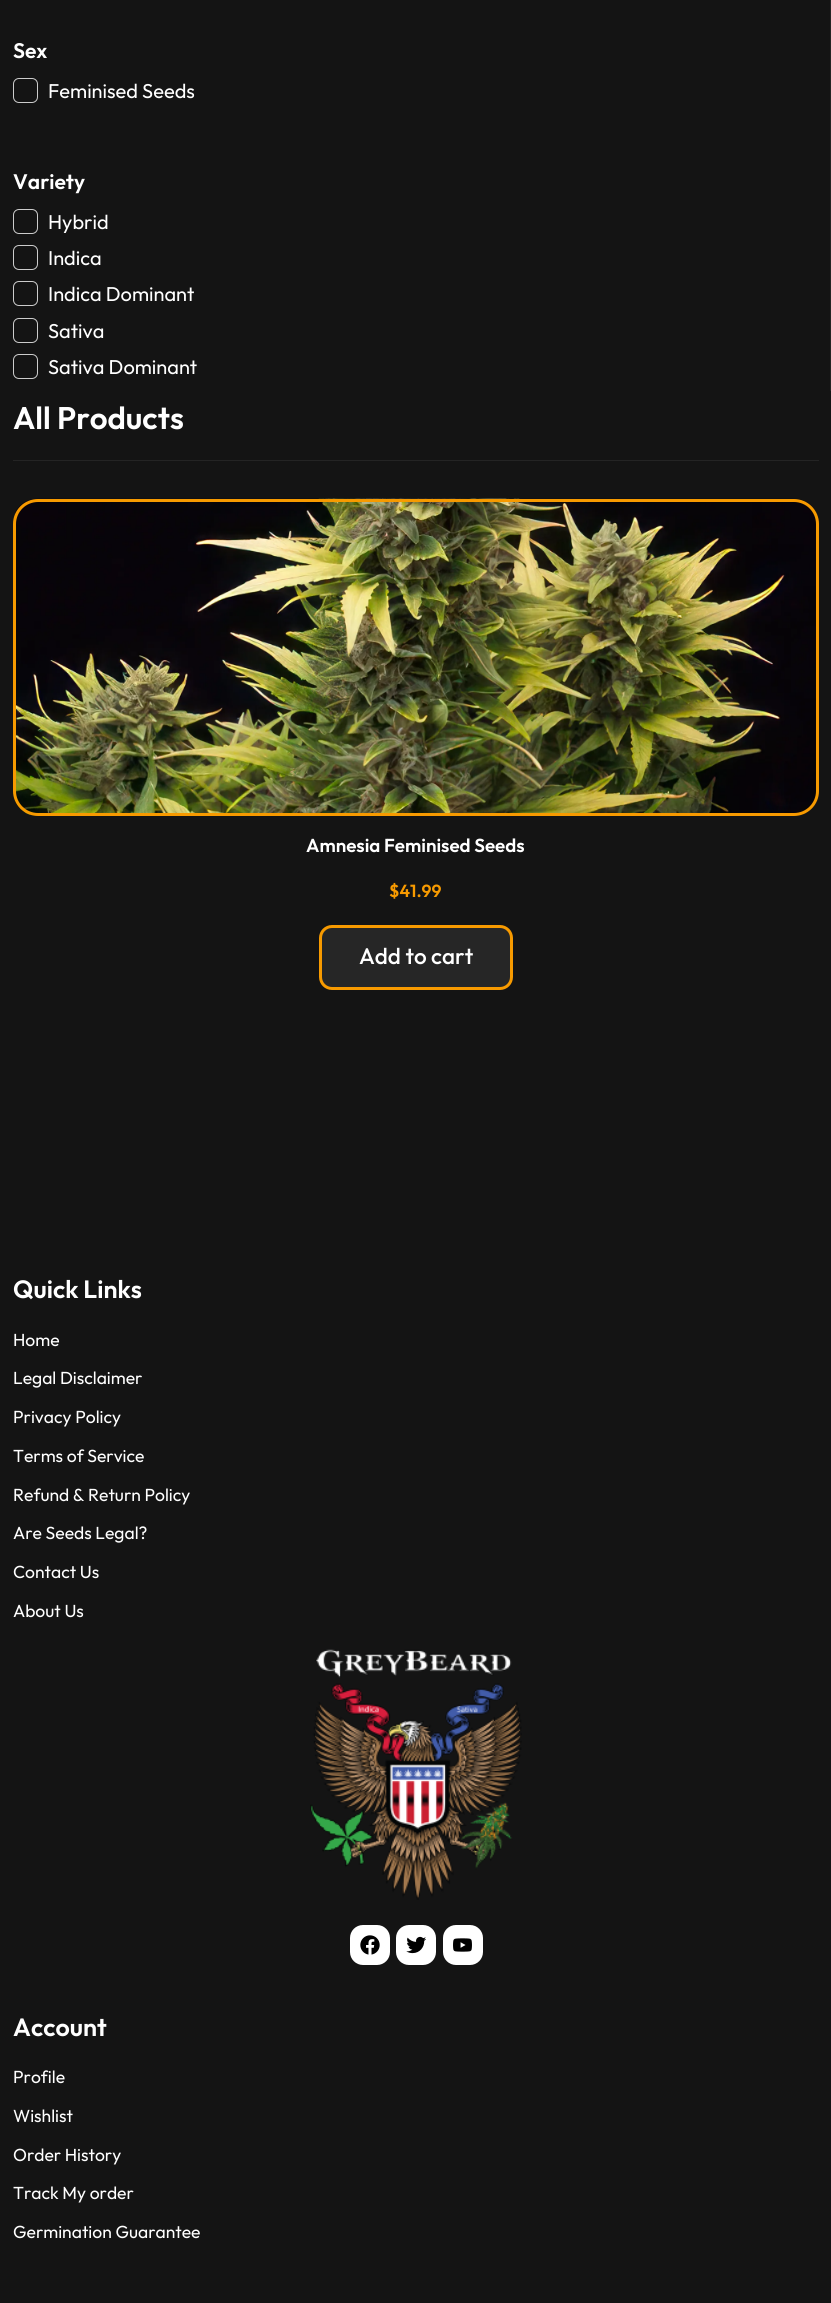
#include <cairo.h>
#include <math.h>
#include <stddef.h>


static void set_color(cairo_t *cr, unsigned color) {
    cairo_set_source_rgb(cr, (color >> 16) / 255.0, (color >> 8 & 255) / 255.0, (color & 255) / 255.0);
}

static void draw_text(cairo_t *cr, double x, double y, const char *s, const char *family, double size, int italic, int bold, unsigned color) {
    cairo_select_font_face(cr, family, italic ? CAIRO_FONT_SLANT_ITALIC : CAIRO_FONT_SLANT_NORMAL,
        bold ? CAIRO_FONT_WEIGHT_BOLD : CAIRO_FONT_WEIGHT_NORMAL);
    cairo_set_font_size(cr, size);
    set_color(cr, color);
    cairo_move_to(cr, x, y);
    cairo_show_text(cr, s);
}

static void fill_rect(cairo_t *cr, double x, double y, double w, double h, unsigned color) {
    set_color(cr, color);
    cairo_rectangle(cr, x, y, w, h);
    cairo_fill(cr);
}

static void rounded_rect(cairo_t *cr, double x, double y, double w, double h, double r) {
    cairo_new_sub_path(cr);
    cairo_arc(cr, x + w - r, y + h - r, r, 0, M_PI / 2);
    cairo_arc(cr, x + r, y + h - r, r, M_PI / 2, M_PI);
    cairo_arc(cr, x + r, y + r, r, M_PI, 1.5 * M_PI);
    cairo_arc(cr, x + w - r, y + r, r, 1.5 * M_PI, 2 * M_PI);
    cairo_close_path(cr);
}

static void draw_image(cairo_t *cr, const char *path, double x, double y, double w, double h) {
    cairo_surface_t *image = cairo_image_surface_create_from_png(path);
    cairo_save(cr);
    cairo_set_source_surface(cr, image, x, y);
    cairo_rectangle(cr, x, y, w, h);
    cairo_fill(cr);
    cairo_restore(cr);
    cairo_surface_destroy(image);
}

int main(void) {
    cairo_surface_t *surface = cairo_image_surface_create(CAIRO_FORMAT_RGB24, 831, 2303);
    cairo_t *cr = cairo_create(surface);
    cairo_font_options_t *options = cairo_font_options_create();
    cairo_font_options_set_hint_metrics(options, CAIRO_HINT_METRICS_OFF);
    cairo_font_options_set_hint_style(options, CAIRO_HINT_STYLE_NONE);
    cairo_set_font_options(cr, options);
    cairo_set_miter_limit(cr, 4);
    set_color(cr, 0x141414);
    cairo_paint(cr);
    fill_rect(cr, 830, 0, 1, 391, 0x242424);
    draw_text(cr, 13, 58, "Sex", "Outfit SemiBold", 21, 0, 0, 0xFFFFFF);
    rounded_rect(cr, 13.5, 78.5, 24, 24, 5.5);
    set_color(cr, 0xCCCCCC);
    cairo_set_line_width(cr, 1);
    cairo_stroke(cr);
    draw_text(cr, 48, 98, "Feminised Seeds", "Outfit", 20, 0, 0, 0xFFFFFF);
    draw_text(cr, 13, 189, "Variety", "Outfit SemiBold", 21, 0, 0, 0xFFFFFF);
    rounded_rect(cr, 13.5, 209.5, 24, 24, 5.5);
    set_color(cr, 0xCCCCCC);
    cairo_stroke(cr);
    draw_text(cr, 48, 229, "Hybrid", "Outfit", 20, 0, 0, 0xFFFFFF);
    rounded_rect(cr, 13.5, 245.5, 24, 24, 5.5);
    set_color(cr, 0xCCCCCC);
    cairo_stroke(cr);
    draw_text(cr, 48, 265, "Indica", "Outfit", 20, 0, 0, 0xFFFFFF);
    rounded_rect(cr, 13.5, 281.5, 24, 24, 5.5);
    set_color(cr, 0xCCCCCC);
    cairo_stroke(cr);
    draw_text(cr, 48, 301, "Indica Dominant", "Outfit", 20, 0, 0, 0xFFFFFF);
    rounded_rect(cr, 13.5, 318.5, 24, 24, 5.5);
    set_color(cr, 0xCCCCCC);
    cairo_stroke(cr);
    draw_text(cr, 48, 338, "Sativa", "Outfit", 20, 0, 0, 0xFFFFFF);
    rounded_rect(cr, 13.5, 354.5, 24, 24, 5.5);
    set_color(cr, 0xCCCCCC);
    cairo_stroke(cr);
    draw_text(cr, 48, 374, "Sativa Dominant", "Outfit", 20, 0, 0, 0xFFFFFF);
    draw_text(cr, 13, 429, "All Products", "Outfit SemiBold", 31.25, 0, 0, 0xFFFFFF);
    fill_rect(cr, 13, 460, 806, 1, 0x242424);
    draw_image(cr, "assets/img1.png", 15, 498, 802, 318);
    rounded_rect(cr, 14.5, 500.5, 803, 314, 23.5);
    set_color(cr, 0xF79A00);
    cairo_set_line_width(cr, 3);
    cairo_stroke(cr);
    draw_text(cr, 306, 852, "Amnesia Feminised Seeds", "Outfit SemiBold", 18.75, 0, 0, 0xFFFFFF);
    draw_text(cr, 389, 897, "$41.99", "Outfit SemiBold", 17.5, 0, 0, 0xF79A00);
    set_color(cr, 0x262626);
    rounded_rect(cr, 320.5, 926.5, 191, 62, 11.5);
    cairo_fill_preserve(cr);
    set_color(cr, 0xF79A00);
    cairo_stroke(cr);
    draw_text(cr, 359, 964, "Add to cart", "Outfit Medium", 22.5, 0, 0, 0xFFFFFF);
    draw_text(cr, 13, 1298, "Quick Links", "Outfit SemiBold", 25, 0, 0, 0xFFFFFF);
    draw_text(cr, 13, 1346, "Home", "Outfit", 17.5, 0, 0, 0xFFFFFF);
    draw_text(cr, 13, 1384, "Legal Disclaimer", "Outfit", 17.5, 0, 0, 0xFFFFFF);
    draw_text(cr, 13, 1423, "Privacy Policy", "Outfit", 17.5, 0, 0, 0xFFFFFF);
    draw_text(cr, 13, 1462, "Terms of Service", "Outfit", 17.5, 0, 0, 0xFFFFFF);
    draw_text(cr, 13, 1501, "Refund & Return Policy", "Outfit", 17.5, 0, 0, 0xFFFFFF);
    draw_text(cr, 13, 1539, "Are Seeds Legal?", "Outfit", 17.5, 0, 0, 0xFFFFFF);
    draw_text(cr, 13, 1578, "Contact Us", "Outfit", 17.5, 0, 0, 0xFFFFFF);
    draw_text(cr, 13, 1617, "About Us", "Outfit", 17.5, 0, 0, 0xFFFFFF);
    draw_image(cr, "assets/img2.png", 310, 1649, 212, 251);
    rounded_rect(cr, 350, 1925, 40, 40, 13);
    cairo_fill(cr);
    draw_image(cr, "assets/img3.png", 360, 1935, 20, 20);
    rounded_rect(cr, 396, 1925, 40, 40, 13);
    cairo_fill(cr);
    draw_image(cr, "assets/img4.png", 406, 1936, 20, 18);
    rounded_rect(cr, 443, 1925, 40, 40, 13);
    cairo_fill(cr);
    draw_image(cr, "assets/img5.png", 453, 1938, 19, 14);
    draw_text(cr, 13, 2036, "Account", "Outfit SemiBold", 25, 0, 0, 0xFFFFFF);
    draw_text(cr, 13, 2083, "Profile", "Outfit", 17.5, 0, 0, 0xFFFFFF);
    draw_text(cr, 13, 2122, "Wishlist", "Outfit", 17.5, 0, 0, 0xFFFFFF);
    draw_text(cr, 13, 2161, "Order History", "Outfit", 17.5, 0, 0, 0xFFFFFF);
    draw_text(cr, 13, 2199, "Track My order", "Outfit", 17.5, 0, 0, 0xFFFFFF);
    draw_text(cr, 13, 2238, "Germination Guarantee", "Outfit", 17.5, 0, 0, 0xFFFFFF);
    cairo_surface_write_to_png(surface, "output.png");
    cairo_font_options_destroy(options);
    cairo_destroy(cr);
    cairo_surface_destroy(surface);
    return 0;
}
